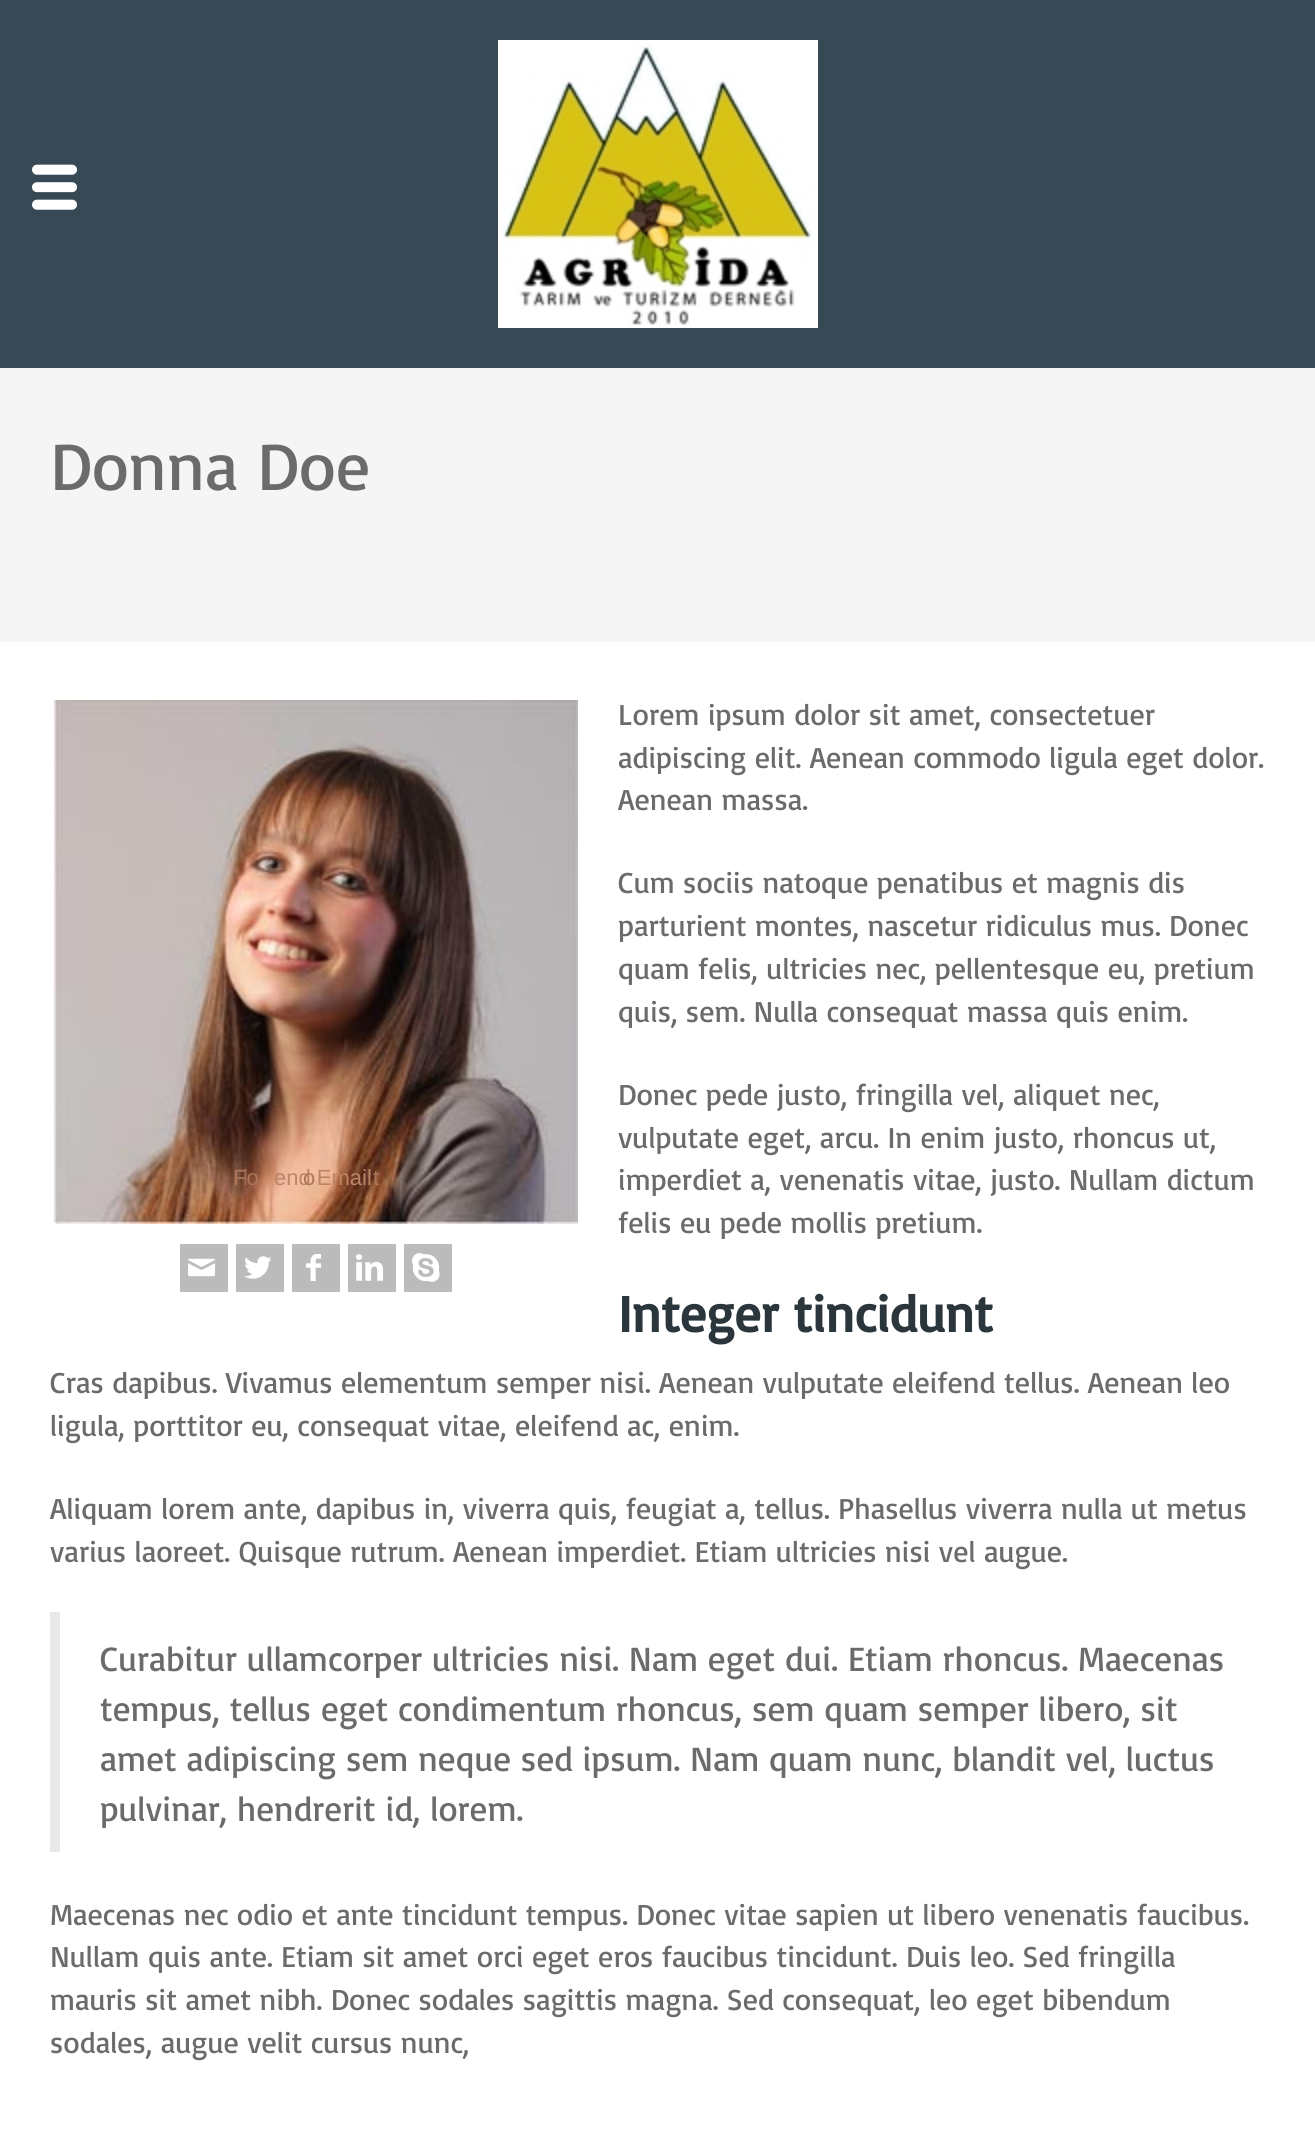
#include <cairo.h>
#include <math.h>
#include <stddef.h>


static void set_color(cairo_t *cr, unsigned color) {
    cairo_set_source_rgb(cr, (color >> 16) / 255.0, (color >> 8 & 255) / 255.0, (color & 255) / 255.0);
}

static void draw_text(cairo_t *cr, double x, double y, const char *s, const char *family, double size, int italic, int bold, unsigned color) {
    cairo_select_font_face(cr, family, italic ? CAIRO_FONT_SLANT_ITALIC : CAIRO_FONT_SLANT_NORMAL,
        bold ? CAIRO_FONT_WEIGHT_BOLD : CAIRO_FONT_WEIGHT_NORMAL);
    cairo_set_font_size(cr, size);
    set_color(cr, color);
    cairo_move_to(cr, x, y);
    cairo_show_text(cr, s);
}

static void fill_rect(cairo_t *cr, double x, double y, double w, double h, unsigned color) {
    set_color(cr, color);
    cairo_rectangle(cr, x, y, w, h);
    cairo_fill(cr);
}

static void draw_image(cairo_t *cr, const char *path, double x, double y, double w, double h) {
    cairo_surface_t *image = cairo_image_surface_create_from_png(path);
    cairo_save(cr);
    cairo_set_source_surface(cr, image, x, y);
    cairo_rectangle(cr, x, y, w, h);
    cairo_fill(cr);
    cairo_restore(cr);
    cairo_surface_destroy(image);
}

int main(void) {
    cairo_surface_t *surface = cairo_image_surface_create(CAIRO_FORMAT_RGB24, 1315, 2150);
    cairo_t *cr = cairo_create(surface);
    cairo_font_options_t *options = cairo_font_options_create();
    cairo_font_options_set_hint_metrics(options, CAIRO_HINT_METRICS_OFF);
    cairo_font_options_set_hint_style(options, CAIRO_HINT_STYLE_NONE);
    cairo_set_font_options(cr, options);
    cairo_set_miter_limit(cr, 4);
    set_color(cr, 0x374955);
    cairo_paint(cr);
    draw_image(cr, "assets/img1.png", 32, 164, 45, 46);
    draw_image(cr, "assets/img2.png", 498, 40, 320, 288);
    fill_rect(cr, 0, 368, 1315, 274, 0xF5F5F5);
    draw_text(cr, 50, 490, "Donna Doe", "Basic", 68, 0, 0, 0x6B6B6B);
    fill_rect(cr, 0, 642, 1315, 1508, 0xFFFFFF);
    draw_text(cr, 618, 725, "Lorem ipsum dolor sit amet, consectetuer", "Basic", 30, 0, 0, 0x6B6B6B);
    draw_text(cr, 618, 768, "adipiscing elit. Aenean commodo ligula eget dolor.", "Basic", 30, 0, 0, 0x6B6B6B);
    draw_text(cr, 618, 810, "Aenean massa.", "Basic", 30, 0, 0, 0x6B6B6B);
    draw_text(cr, 618, 893, "Cum sociis natoque penatibus et magnis dis", "Basic", 30, 0, 0, 0x6B6B6B);
    draw_text(cr, 618, 936, "parturient montes, nascetur ridiculus mus. Donec", "Basic", 30, 0, 0, 0x6B6B6B);
    draw_text(cr, 618, 979, "quam felis, ultricies nec, pellentesque eu, pretium", "Basic", 30, 0, 0, 0x6B6B6B);
    draw_text(cr, 618, 1022, "quis, sem. Nulla consequat massa quis enim.", "Basic", 30, 0, 0, 0x6B6B6B);
    draw_text(cr, 618, 1105, "Donec pede justo, fringilla vel, aliquet nec,", "Basic", 30, 0, 0, 0x6B6B6B);
    draw_text(cr, 618, 1148, "vulputate eget, arcu. In enim justo, rhoncus ut,", "Basic", 30, 0, 0, 0x6B6B6B);
    draw_text(cr, 618, 1190, "imperdiet a, venenatis vitae, justo. Nullam dictum", "Basic", 30, 0, 0, 0x6B6B6B);
    draw_text(cr, 618, 1233, "felis eu pede mollis pretium.", "Basic", 30, 0, 0, 0x6B6B6B);
    draw_text(cr, 618, 1332, "Integer tincidunt", "Basic", 52, 0, 1, 0x2A363C);
    draw_text(cr, 50, 1393, "Cras dapibus. Vivamus elementum semper nisi. Aenean vulputate eleifend tellus. Aenean leo", "Basic", 30, 0, 0, 0x6B6B6B);
    draw_text(cr, 50, 1436, "ligula, porttitor eu, consequat vitae, eleifend ac, enim.", "Basic", 30, 0, 0, 0x6B6B6B);
    draw_text(cr, 50, 1519, "Aliquam lorem ante, dapibus in, viverra quis, feugiat a, tellus. Phasellus viverra nulla ut metus", "Basic", 30, 0, 0, 0x6B6B6B);
    draw_text(cr, 50, 1562, "varius laoreet. Quisque rutrum. Aenean imperdiet. Etiam ultricies nisi vel augue.", "Basic", 30, 0, 0, 0x6B6B6B);
    fill_rect(cr, 50, 1612, 10, 240, 0xE8E8E8);
    draw_text(cr, 100, 1671, "Curabitur ullamcorper ultricies nisi. Nam eget dui. Etiam rhoncus. Maecenas", "Basic", 35, 0, 0, 0x6B6B6B);
    draw_text(cr, 100, 1721, "tempus, tellus eget condimentum rhoncus, sem quam semper libero, sit", "Basic", 35, 0, 0, 0x6B6B6B);
    draw_text(cr, 100, 1771, "amet adipiscing sem neque sed ipsum. Nam quam nunc, blandit vel, luctus", "Basic", 35, 0, 0, 0x6B6B6B);
    draw_text(cr, 100, 1821, "pulvinar, hendrerit id, lorem.", "Basic", 35, 0, 0, 0x6B6B6B);
    draw_text(cr, 50, 1925, "Maecenas nec odio et ante tincidunt tempus. Donec vitae sapien ut libero venenatis faucibus.", "Basic", 30, 0, 0, 0x6B6B6B);
    draw_text(cr, 50, 1967, "Nullam quis ante. Etiam sit amet orci eget eros faucibus tincidunt. Duis leo. Sed fringilla", "Basic", 30, 0, 0, 0x6B6B6B);
    draw_text(cr, 50, 2010, "mauris sit amet nibh. Donec sodales sagittis magna. Sed consequat, leo eget bibendum", "Basic", 30, 0, 0, 0x6B6B6B);
    draw_text(cr, 50, 2053, "sodales, augue velit cursus nunc,", "Basic", 30, 0, 0, 0x6B6B6B);
    draw_image(cr, "assets/img3.png", 54, 700, 524, 524);
    fill_rect(cr, 236, 1244, 48, 48, 0xBBBBBB);
    draw_text(cr, 233, 1185, "Fo", "Liberation Sans", 22, 0, 0, 0xAD765A);
    draw_text(cr, 274, 1185, "end Email", "Liberation Sans", 22, 0, 0, 0xBD8568);
    draw_text(cr, 303, 1185, "o", "Liberation Sans", 22, 0, 0, 0xAD765A);
    draw_text(cr, 373, 1185, "t", "Liberation Sans", 22, 0, 0, 0xAD765A);
    draw_image(cr, "assets/img4.png", 244, 1256, 28, 23);
    fill_rect(cr, 292, 1244, 48, 48, 0xBBBBBB);
    draw_text(cr, 243, 1185, "l", "Liberation Sans", 22, 0, 0, 0xA06D54);
    draw_image(cr, "assets/img5.png", 306, 1254, 15, 27);
    fill_rect(cr, 180, 1244, 48, 48, 0xBBBBBB);
    draw_image(cr, "assets/img6.png", 188, 1258, 27, 19);
    fill_rect(cr, 348, 1244, 48, 48, 0xBBBBBB);
    draw_image(cr, "assets/img7.png", 356, 1254, 27, 27);
    fill_rect(cr, 404, 1244, 48, 48, 0xBBBBBB);
    draw_image(cr, "assets/img8.png", 412, 1253, 28, 29);
    cairo_surface_write_to_png(surface, "output.png");
    cairo_font_options_destroy(options);
    cairo_destroy(cr);
    cairo_surface_destroy(surface);
    return 0;
}
